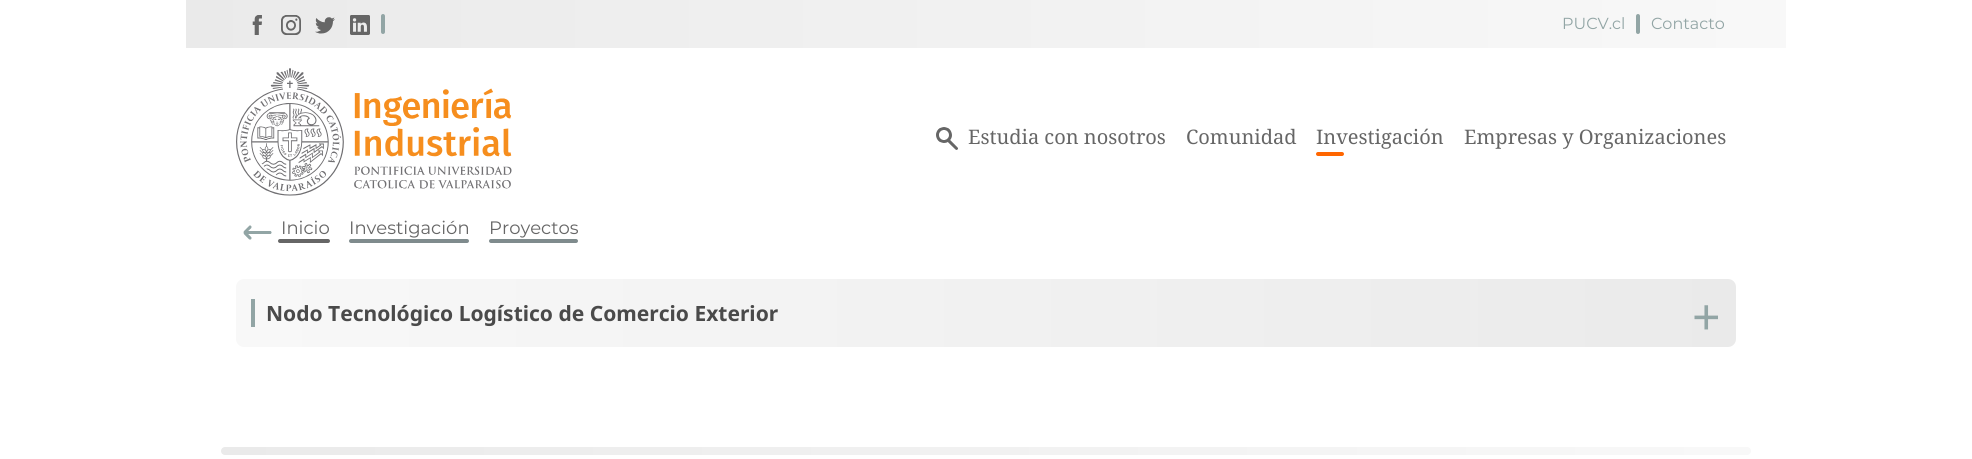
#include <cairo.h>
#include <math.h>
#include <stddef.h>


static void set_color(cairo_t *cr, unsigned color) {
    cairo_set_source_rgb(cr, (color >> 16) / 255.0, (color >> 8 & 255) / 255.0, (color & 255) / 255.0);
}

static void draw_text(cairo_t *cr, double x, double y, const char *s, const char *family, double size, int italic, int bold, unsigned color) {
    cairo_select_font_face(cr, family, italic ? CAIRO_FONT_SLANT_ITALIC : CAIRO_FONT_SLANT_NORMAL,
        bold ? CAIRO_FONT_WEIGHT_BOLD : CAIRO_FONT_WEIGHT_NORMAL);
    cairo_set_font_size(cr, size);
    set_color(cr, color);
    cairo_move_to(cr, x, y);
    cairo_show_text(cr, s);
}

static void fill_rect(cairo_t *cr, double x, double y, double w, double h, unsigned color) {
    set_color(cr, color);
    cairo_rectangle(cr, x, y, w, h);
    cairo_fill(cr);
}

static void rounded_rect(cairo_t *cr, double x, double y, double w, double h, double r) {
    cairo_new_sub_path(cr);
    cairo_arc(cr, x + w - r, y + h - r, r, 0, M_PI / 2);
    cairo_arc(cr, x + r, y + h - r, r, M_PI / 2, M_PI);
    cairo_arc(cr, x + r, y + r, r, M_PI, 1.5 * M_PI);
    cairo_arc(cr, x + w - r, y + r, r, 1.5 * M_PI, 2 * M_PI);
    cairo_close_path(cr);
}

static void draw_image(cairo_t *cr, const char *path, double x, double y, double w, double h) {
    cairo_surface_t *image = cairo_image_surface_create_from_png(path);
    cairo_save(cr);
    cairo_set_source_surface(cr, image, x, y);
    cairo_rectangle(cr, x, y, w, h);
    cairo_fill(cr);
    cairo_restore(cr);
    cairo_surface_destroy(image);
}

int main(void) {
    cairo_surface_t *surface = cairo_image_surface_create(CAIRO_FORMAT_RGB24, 1972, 459);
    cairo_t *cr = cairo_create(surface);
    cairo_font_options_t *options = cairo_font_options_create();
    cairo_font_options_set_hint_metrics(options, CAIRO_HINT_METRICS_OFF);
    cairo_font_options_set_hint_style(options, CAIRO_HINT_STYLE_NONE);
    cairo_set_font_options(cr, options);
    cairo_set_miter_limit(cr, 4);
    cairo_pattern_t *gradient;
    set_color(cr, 0xFFFFFF);
    cairo_paint(cr);
    gradient = cairo_pattern_create_linear(1786, 24, 186, 24);
    cairo_pattern_add_color_stop_rgba(gradient, 0, 0.973, 0.973, 0.973, 1);
    cairo_pattern_add_color_stop_rgba(gradient, 1, 0.918, 0.918, 0.918, 1);
    cairo_set_source(cr, gradient);
    cairo_pattern_destroy(gradient);
    cairo_rectangle(cr, 186, 0, 1600, 48);
    cairo_fill(cr);
    draw_image(cr, "assets/img1.png", 252, 15, 10, 20);
    draw_image(cr, "assets/img2.png", 281, 15, 20, 20);
    draw_image(cr, "assets/img3.png", 315, 17, 20, 17);
    draw_image(cr, "assets/img4.png", 350, 15, 20, 20);
    set_color(cr, 0x92A5A5);
    rounded_rect(cr, 381, 14, 4, 20, 2);
    cairo_fill(cr);
    draw_text(cr, 1562, 29, "PUCV.cl", "Montserrat", 16, 0, 0, 0x92A5A5);
    rounded_rect(cr, 1636, 14, 4, 20, 2);
    cairo_fill(cr);
    draw_text(cr, 1651, 29, "Contacto", "Montserrat", 16, 0, 0, 0x92A5A5);
    draw_image(cr, "assets/img5.png", 236, 68, 276, 128);
    draw_image(cr, "assets/img6.png", 936, 127, 22, 23);
    draw_text(cr, 968, 144, "Estudia con nosotros", "Noto Serif", 20, 0, 0, 0x666666);
    draw_text(cr, 1186, 144, "Comunidad", "Noto Serif", 20, 0, 0, 0x666666);
    draw_text(cr, 1316, 144, "Investigación", "Noto Serif", 20, 0, 0, 0x666666);
    set_color(cr, 0xFF6600);
    rounded_rect(cr, 1316, 152, 28, 4, 2);
    cairo_fill(cr);
    draw_text(cr, 1464, 144, "Empresas y Organizaciones", "Noto Serif", 20, 0, 0, 0x666666);
    draw_image(cr, "assets/img7.png", 243, 225, 29, 15);
    draw_text(cr, 281, 234, "Inicio", "Montserrat", 18, 0, 0, 0x666666);
    rounded_rect(cr, 278, 239, 52, 4, 2);
    cairo_fill(cr);
    draw_text(cr, 349, 234, "Investigación", "Montserrat", 18, 0, 0, 0x666666);
    set_color(cr, 0x7F8B8D);
    rounded_rect(cr, 349, 239, 120, 4, 2);
    cairo_fill(cr);
    draw_text(cr, 489, 234, "Proyectos", "Montserrat", 18, 0, 0, 0x666666);
    set_color(cr, 0x7F8B8D);
    rounded_rect(cr, 489, 239, 89, 4, 2);
    cairo_fill(cr);
    gradient = cairo_pattern_create_linear(236, 313, 1736, 313);
    cairo_pattern_add_color_stop_rgba(gradient, 0, 0.973, 0.973, 0.973, 1);
    cairo_pattern_add_color_stop_rgba(gradient, 1, 0.918, 0.918, 0.918, 1);
    cairo_set_source(cr, gradient);
    cairo_pattern_destroy(gradient);
    rounded_rect(cr, 236, 279, 1500, 68, 8);
    cairo_fill(cr);
    fill_rect(cr, 251, 299, 4, 28, 0x92A5A5);
    draw_text(cr, 266, 321, "Nodo Tecnológico Logístico de Comercio Exterior", "Noto Sans", 21, 0, 1, 0x4A4A4A);
    draw_text(cr, 1692, 335, "+", "Noto Sans", 50, 0, 0, 0x92A5A5);
    gradient = cairo_pattern_create_linear(1751, 451, 221, 451);
    cairo_pattern_add_color_stop_rgba(gradient, 0, 0.973, 0.973, 0.973, 1);
    cairo_pattern_add_color_stop_rgba(gradient, 1, 0.918, 0.918, 0.918, 1);
    cairo_set_source(cr, gradient);
    cairo_pattern_destroy(gradient);
    rounded_rect(cr, 221, 447, 1530, 8, 4);
    cairo_fill(cr);
    cairo_surface_write_to_png(surface, "output.png");
    cairo_font_options_destroy(options);
    cairo_destroy(cr);
    cairo_surface_destroy(surface);
    return 0;
}
